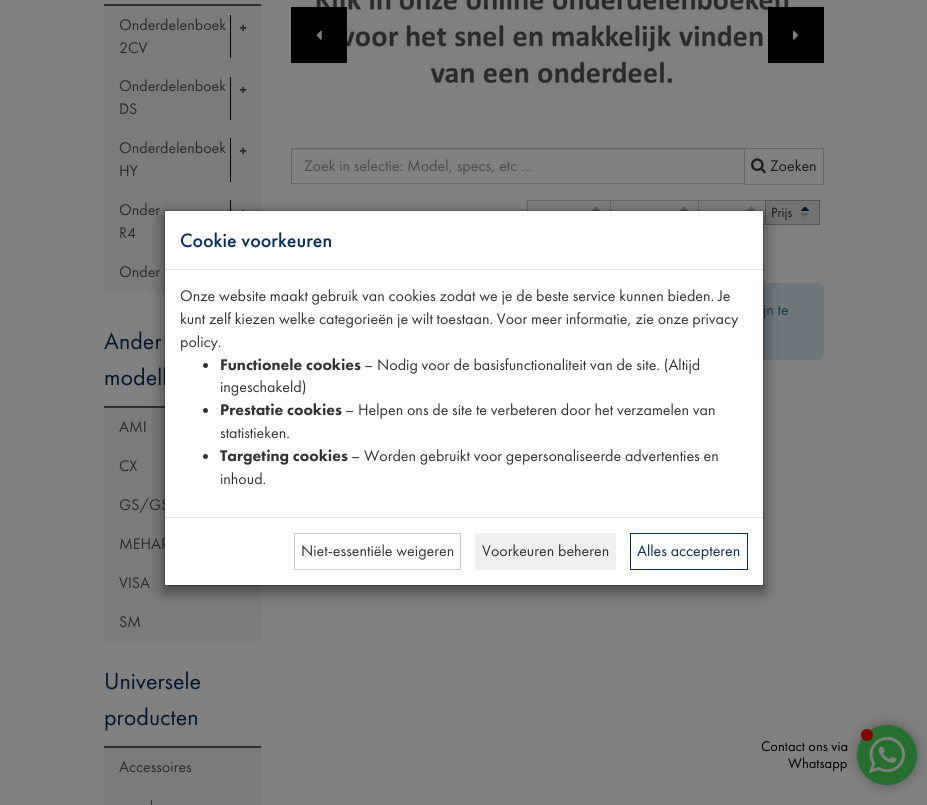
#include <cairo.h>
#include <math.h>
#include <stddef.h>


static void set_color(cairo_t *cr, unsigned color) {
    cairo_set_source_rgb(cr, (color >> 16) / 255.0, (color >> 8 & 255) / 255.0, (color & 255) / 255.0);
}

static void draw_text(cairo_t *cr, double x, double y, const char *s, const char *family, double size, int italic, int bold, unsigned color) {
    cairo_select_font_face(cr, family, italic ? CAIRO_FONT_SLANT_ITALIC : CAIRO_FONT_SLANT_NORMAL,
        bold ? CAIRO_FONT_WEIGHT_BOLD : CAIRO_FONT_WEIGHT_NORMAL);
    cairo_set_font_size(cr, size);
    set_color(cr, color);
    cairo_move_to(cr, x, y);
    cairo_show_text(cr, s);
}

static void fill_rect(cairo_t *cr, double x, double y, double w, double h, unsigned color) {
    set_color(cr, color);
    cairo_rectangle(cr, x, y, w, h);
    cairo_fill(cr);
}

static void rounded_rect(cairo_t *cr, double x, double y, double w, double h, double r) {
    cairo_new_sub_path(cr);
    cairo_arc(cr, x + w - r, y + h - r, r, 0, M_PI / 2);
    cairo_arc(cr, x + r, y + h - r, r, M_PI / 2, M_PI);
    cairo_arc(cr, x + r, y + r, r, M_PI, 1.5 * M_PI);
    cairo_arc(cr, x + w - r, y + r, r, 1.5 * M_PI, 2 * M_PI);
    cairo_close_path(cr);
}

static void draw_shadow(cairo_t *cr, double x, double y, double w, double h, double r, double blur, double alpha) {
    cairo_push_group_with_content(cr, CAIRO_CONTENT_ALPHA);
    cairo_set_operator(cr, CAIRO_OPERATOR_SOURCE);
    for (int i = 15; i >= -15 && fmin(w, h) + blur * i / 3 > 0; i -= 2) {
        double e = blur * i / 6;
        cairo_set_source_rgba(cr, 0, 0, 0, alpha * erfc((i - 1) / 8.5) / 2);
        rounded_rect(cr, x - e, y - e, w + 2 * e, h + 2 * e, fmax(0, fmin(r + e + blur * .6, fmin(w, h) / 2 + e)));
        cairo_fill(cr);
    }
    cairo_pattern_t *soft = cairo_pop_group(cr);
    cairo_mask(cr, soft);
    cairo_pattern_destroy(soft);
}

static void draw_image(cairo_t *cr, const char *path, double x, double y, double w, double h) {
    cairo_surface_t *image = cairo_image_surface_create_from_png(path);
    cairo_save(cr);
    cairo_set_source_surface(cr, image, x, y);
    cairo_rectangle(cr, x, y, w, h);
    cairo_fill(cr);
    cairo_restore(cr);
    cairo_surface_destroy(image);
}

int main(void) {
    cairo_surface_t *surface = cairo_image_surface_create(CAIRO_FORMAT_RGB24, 927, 805);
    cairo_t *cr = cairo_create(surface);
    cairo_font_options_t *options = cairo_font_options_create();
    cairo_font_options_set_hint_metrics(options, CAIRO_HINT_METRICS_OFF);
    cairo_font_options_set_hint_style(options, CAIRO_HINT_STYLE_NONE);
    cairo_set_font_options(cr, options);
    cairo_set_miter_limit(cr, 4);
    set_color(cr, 0x808080);
    cairo_paint(cr);
    fill_rect(cr, 104, 4, 157, 2, 0x2F2F2F);
    fill_rect(cr, 104, 6, 157, 247, 0x7B7B7B);
    draw_text(cr, 119, 30, "Onderdelenboek", "Futura PT", 16, 0, 0, 0x2B2B2B);
    draw_text(cr, 119, 53, "2CV", "Futura PT", 16, 0, 0, 0x2B2B2B);
    fill_rect(cr, 230, 15, 1, 43, 0x000000);
    draw_image(cr, "assets/img1.png", 240, 24, 7, 7);
    draw_text(cr, 119, 91, "Onderdelenboek", "Futura PT", 16, 0, 0, 0x2B2B2B);
    draw_text(cr, 119, 114, "DS", "Futura PT", 16, 0, 0, 0x2B2B2B);
    fill_rect(cr, 230, 77, 1, 43, 0x000000);
    draw_image(cr, "assets/img1.png", 240, 86, 7, 7);
    draw_text(cr, 119, 153, "Onderdelenboek", "Futura PT", 16, 0, 0, 0x2B2B2B);
    draw_text(cr, 119, 176, "HY", "Futura PT", 16, 0, 0, 0x2B2B2B);
    fill_rect(cr, 230, 138, 1, 44, 0x000000);
    draw_image(cr, "assets/img1.png", 240, 147, 7, 7);
    draw_text(cr, 119, 215, "Onder", "Futura PT", 16, 0, 0, 0x2B2B2B);
    draw_text(cr, 119, 238, "R4", "Futura PT", 16, 0, 0, 0x2B2B2B);
    fill_rect(cr, 230, 200, 1, 11, 0x000000);
    draw_image(cr, "assets/img2.png", 242, 209, 2, 2);
    fill_rect(cr, 104, 253, 61, 38, 0x7B7B7B);
    draw_text(cr, 119, 277, "Onder", "Futura PT", 16, 0, 0, 0x2B2B2B);
    draw_text(cr, 104, 349, "Ander", "Futura PT", 24, 0, 0, 0x02172D);
    draw_text(cr, 104, 385, "modell", "Futura PT", 24, 0, 0, 0x02172D);
    fill_rect(cr, 104, 406, 61, 2, 0x2F2F2F);
    fill_rect(cr, 104, 408, 61, 156, 0x7B7B7B);
    draw_text(cr, 119, 432, "AMI", "Futura PT", 16, 0, 0, 0x2B2B2B);
    draw_text(cr, 119, 471, "CX", "Futura PT", 16, 0, 0, 0x2B2B2B);
    draw_text(cr, 119, 510, "GS/GS", "Futura PT", 16, 0, 0, 0x2B2B2B);
    draw_text(cr, 119, 549, "MEHAR", "Futura PT", 16, 0, 0, 0x2B2B2B);
    fill_rect(cr, 104, 564, 157, 77, 0x7B7B7B);
    draw_text(cr, 119, 588, "VISA", "Futura PT", 16, 0, 0, 0x2B2B2B);
    draw_text(cr, 119, 627, "SM", "Futura PT", 16, 0, 0, 0x2B2B2B);
    draw_text(cr, 104, 689, "Universele", "Futura PT", 24, 0, 0, 0x02172D);
    draw_text(cr, 104, 725, "producten", "Futura PT", 24, 0, 0, 0x02172D);
    fill_rect(cr, 104, 746, 157, 2, 0x2F2F2F);
    fill_rect(cr, 104, 748, 157, 57, 0x7B7B7B);
    draw_text(cr, 119, 772, "Accessoires", "Futura PT", 16, 0, 0, 0x2B2B2B);
    draw_text(cr, 150, 811, "'", "Futura PT", 16, 0, 0, 0x2B2B2B);
    draw_image(cr, "assets/img3.png", 315, 0, 478, 85);
    fill_rect(cr, 291, 7, 56, 56, 0x000000);
    draw_image(cr, "assets/img4.png", 316, 30, 6, 10);
    fill_rect(cr, 768, 7, 56, 56, 0x000000);
    draw_image(cr, "assets/img5.png", 793, 30, 6, 10);
    fill_rect(cr, 292, 149, 452, 1, 0x767676);
    cairo_rectangle(cr, 291.5, 148.5, 453, 35);
    set_color(cr, 0x666666);
    cairo_set_line_width(cr, 1);
    cairo_stroke(cr);
    draw_text(cr, 304, 171, "Zoek in selectie: Model, specs, etc ...", "Futura PT", 16, 0, 0, 0x4D4D4D);
    cairo_rectangle(cr, 744.5, 148.5, 79, 36);
    set_color(cr, 0x666666);
    cairo_stroke(cr);
    draw_image(cr, "assets/img6.png", 751, 158, 15, 16);
    draw_text(cr, 770, 171, "Zoeken", "Futura PT", 16, 0, 0, 0x1A1A1A);
    cairo_rectangle(cr, 527.5, 200.5, 83, 24);
    set_color(cr, 0x666666);
    cairo_stroke(cr);
    draw_image(cr, "assets/img7.png", 592, 206, 8, 5);
    cairo_rectangle(cr, 610.5, 200.5, 88, 24);
    cairo_stroke(cr);
    draw_image(cr, "assets/img7.png", 680, 206, 8, 5);
    cairo_rectangle(cr, 698.5, 200.5, 67, 24);
    cairo_stroke(cr);
    draw_image(cr, "assets/img7.png", 747, 206, 8, 5);
    set_color(cr, 0x737373);
    cairo_rectangle(cr, 765.5, 200.5, 54, 24);
    cairo_fill_preserve(cr);
    set_color(cr, 0x575757);
    cairo_stroke(cr);
    draw_text(cr, 771, 217, "Prijs", "Futura PT", 14, 0, 0, 0x1A1A1A);
    draw_image(cr, "assets/img8.png", 801, 206, 8, 5);
    draw_image(cr, "assets/img9.png", 801, 213, 8, 5);
    set_color(cr, 0x6D777C);
    rounded_rect(cr, 291, 283, 533, 77, 5);
    cairo_fill(cr);
    draw_text(cr, 763, 315, "jn te", "Futura PT", 16, 0, 0, 0x193848);
    draw_text(cr, 761, 751, "Contact ons via", "Futura PT", 14.5, 0, 0, 0x000000);
    draw_text(cr, 788, 768, "Whatsapp", "Futura PT", 14.5, 0, 0, 0x000000);
    set_color(cr, 0x000000);
    draw_shadow(cr, 857, 725, 60, 60, 30, 6, 0.3);
    set_color(cr, 0x257030);
    cairo_arc(cr, 887, 755, 30, 0, 2 * M_PI);
    cairo_fill(cr);
    draw_image(cr, "assets/img10.png", 869, 737, 36, 36);
    set_color(cr, 0x800000);
    cairo_arc(cr, 867, 735, 6, 0, 2 * M_PI);
    cairo_fill(cr);
    set_color(cr, 0x000000);
    draw_shadow(cr, 164, 215, 600, 376, 0, 7.5, 0.5);
    fill_rect(cr, 165, 211, 598, 374, 0xFFFFFF);
    cairo_rectangle(cr, 164.5, 210.5, 599, 375);
    cairo_set_source_rgba(cr, 0, 0, 0, 0.2);
    cairo_stroke(cr);
    fill_rect(cr, 165, 269, 598, 1, 0xE5E5E5);
    draw_text(cr, 180, 247, "Cookie voorkeuren", "Futura PT Medium", 20, 0, 0, 0x032D5A);
    draw_text(cr, 180, 301, "Onze website maakt gebruik van cookies zodat we je de beste service kunnen bieden. Je", "Futura PT", 16, 0, 0, 0x333333);
    draw_text(cr, 180, 324, "kunt zelf kiezen welke categorieën je wilt toestaan. Voor meer informatie, zie onze privacy", "Futura PT", 16, 0, 0, 0x333333);
    draw_text(cr, 180, 347, "policy.", "Futura PT", 16, 0, 0, 0x333333);
    cairo_new_path(cr);
    cairo_arc(cr, 205.5, 365.5, 2.5, 0, 2 * M_PI);
    cairo_fill(cr);
    draw_text(cr, 220, 370, "Functionele cookies", "Futura PT Black", 16, 0, 0, 0x333333);
    draw_text(cr, 364, 370, "– Nodig voor de basisfunctionaliteit van de site. (Altijd", "Futura PT", 16, 0, 0, 0x333333);
    draw_text(cr, 220, 392, "ingeschakeld)", "Futura PT", 16, 0, 0, 0x333333);
    cairo_new_path(cr);
    cairo_arc(cr, 205.5, 410.5, 2.5, 0, 2 * M_PI);
    cairo_fill(cr);
    draw_text(cr, 220, 415, "Prestatie cookies", "Futura PT Black", 16, 0, 0, 0x333333);
    draw_text(cr, 345, 415, "– Helpen ons de site te verbeteren door het verzamelen van", "Futura PT", 16, 0, 0, 0x333333);
    draw_text(cr, 220, 438, "statistieken.", "Futura PT", 16, 0, 0, 0x333333);
    cairo_new_path(cr);
    cairo_arc(cr, 205.5, 456.5, 2.5, 0, 2 * M_PI);
    cairo_fill(cr);
    draw_text(cr, 220, 461, "Targeting cookies", "Futura PT Black", 16, 0, 0, 0x333333);
    draw_text(cr, 351, 461, "– Worden gebruikt voor gepersonaliseerde advertenties en", "Futura PT", 16, 0, 0, 0x333333);
    draw_text(cr, 220, 484, "inhoud.", "Futura PT", 16, 0, 0, 0x333333);
    fill_rect(cr, 165, 517, 598, 1, 0xE5E5E5);
    cairo_rectangle(cr, 294.5, 533.5, 166, 36);
    set_color(cr, 0xCCCCCC);
    cairo_stroke(cr);
    draw_text(cr, 301, 556, "Niet-essentiële weigeren", "Futura PT", 16, 0, 0, 0x333333);
    fill_rect(cr, 475, 533, 141, 37, 0xEFEFEF);
    draw_text(cr, 482, 556, "Voorkeuren beheren", "Futura PT", 16, 0, 0, 0x333333);
    cairo_rectangle(cr, 630.5, 533.5, 117, 36);
    set_color(cr, 0x032D5A);
    cairo_stroke(cr);
    draw_text(cr, 637, 556, "Alles accepteren", "Futura PT", 16, 0, 0, 0x032D5A);
    cairo_surface_write_to_png(surface, "output.png");
    cairo_font_options_destroy(options);
    cairo_destroy(cr);
    cairo_surface_destroy(surface);
    return 0;
}
